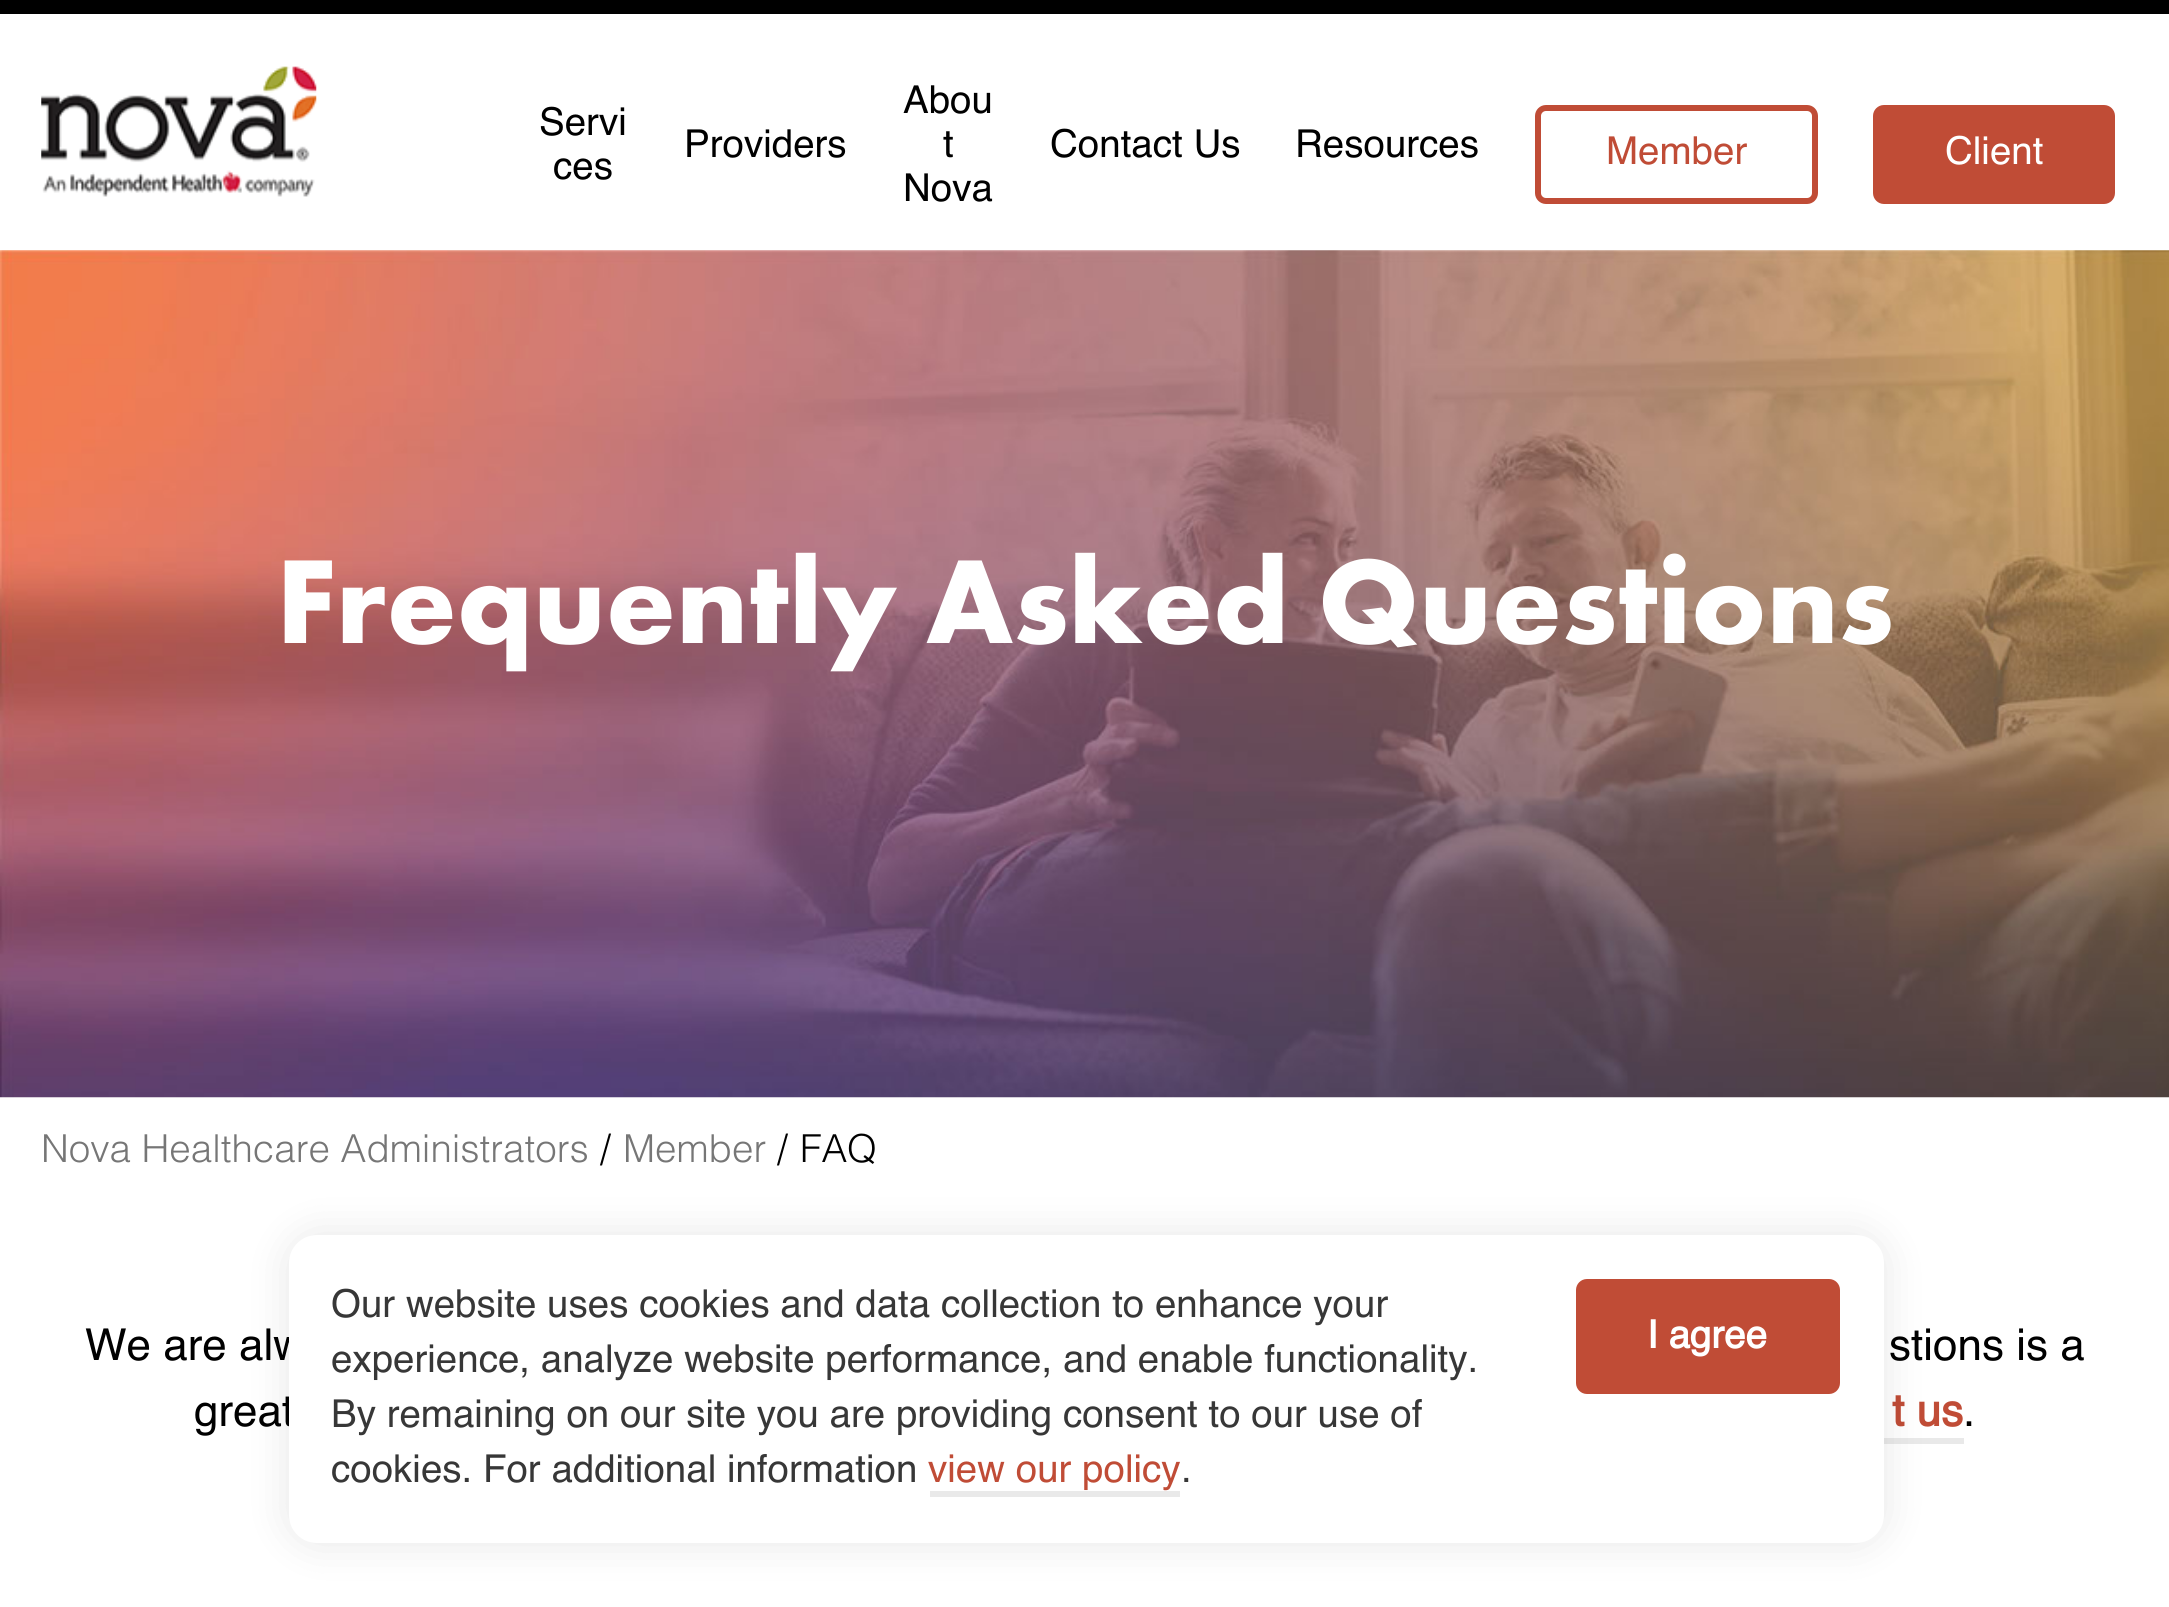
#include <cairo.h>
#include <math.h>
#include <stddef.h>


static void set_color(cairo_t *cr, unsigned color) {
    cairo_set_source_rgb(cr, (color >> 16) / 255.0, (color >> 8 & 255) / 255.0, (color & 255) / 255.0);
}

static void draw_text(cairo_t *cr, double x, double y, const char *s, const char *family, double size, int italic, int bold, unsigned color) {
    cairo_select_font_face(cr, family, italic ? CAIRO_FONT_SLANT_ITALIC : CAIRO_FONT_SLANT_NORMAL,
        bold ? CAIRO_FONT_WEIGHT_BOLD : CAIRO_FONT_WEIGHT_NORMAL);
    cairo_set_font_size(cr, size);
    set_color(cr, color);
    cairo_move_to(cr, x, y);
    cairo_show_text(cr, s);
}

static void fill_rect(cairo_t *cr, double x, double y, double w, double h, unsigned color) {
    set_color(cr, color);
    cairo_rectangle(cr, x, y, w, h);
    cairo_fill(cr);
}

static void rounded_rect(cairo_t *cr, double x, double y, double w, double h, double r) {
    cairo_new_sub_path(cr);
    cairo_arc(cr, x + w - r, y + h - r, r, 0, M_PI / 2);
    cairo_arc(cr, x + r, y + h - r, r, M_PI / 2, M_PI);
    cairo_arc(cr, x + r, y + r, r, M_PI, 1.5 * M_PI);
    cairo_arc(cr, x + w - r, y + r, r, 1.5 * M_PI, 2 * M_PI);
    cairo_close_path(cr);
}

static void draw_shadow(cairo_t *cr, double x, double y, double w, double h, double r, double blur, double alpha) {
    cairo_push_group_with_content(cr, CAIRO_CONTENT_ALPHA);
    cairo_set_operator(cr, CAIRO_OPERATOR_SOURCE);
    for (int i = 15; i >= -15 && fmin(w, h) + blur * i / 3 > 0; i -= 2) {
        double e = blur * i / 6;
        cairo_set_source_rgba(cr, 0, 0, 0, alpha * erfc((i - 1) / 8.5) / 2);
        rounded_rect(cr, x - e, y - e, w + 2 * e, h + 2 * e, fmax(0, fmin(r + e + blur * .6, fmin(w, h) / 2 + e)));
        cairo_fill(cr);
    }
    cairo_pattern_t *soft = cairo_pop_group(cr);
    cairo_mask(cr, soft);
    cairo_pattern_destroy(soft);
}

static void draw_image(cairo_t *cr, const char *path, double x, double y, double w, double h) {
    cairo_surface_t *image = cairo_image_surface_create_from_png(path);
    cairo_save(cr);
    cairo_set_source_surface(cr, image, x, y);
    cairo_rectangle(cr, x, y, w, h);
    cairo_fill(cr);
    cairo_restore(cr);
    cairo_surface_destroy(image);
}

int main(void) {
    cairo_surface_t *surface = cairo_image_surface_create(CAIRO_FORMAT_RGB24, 2169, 1607);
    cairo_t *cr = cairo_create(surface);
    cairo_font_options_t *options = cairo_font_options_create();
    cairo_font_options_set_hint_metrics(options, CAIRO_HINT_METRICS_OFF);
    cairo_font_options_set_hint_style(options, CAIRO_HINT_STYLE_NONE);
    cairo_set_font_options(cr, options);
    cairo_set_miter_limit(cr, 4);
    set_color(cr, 0xFFFFFF);
    cairo_paint(cr);
    fill_rect(cr, 0, 0, 2169, 14, 0x000000);
    draw_image(cr, "assets/img1.png", 41, 66, 276, 131);
    draw_text(cr, 539, 135, "Servi", "Helvetica", 38.5, 0, 0, 0x000000);
    draw_text(cr, 553, 179, "ces", "Helvetica", 38.5, 0, 0, 0x000000);
    draw_text(cr, 684, 157, "Providers", "Helvetica", 38.5, 0, 0, 0x000000);
    draw_text(cr, 903, 113, "Abou", "Helvetica", 38.5, 0, 0, 0x000000);
    draw_text(cr, 943, 157, "t", "Helvetica", 38.5, 0, 0, 0x000000);
    draw_text(cr, 903, 201, "Nova", "Helvetica", 38.5, 0, 0, 0x000000);
    draw_text(cr, 1050, 157, "Contact Us", "Helvetica", 38.5, 0, 0, 0x000000);
    draw_text(cr, 1295, 157, "Resources", "Helvetica", 38.5, 0, 0, 0x000000);
    rounded_rect(cr, 1538, 108, 277, 93, 8);
    set_color(cr, 0xC04C36);
    cairo_set_line_width(cr, 6);
    cairo_stroke(cr);
    draw_text(cr, 1606, 164, "Member", "Helvetica", 38.5, 0, 0, 0xC04C36);
    rounded_rect(cr, 1873, 105, 242, 99, 11);
    cairo_fill(cr);
    draw_text(cr, 1945, 164, "Client", "Helvetica", 38.5, 0, 0, 0xFFFFFF);
    draw_image(cr, "assets/img2.png", 0, 250, 2169, 848);
    draw_text(cr, 276, 643, "Frequently Asked Questions", "Futura PT", 123.75, 0, 1, 0xFFFFFF);
    draw_text(cr, 41, 1162, "Nova Healthcare Administrators", "Helvetica Light", 38.5, 0, 0, 0x767676);
    draw_text(cr, 600, 1162, "/", "Helvetica Light", 38.5, 0, 0, 0x000000);
    draw_text(cr, 623, 1162, "Member", "Helvetica Light", 38.5, 0, 0, 0x767676);
    draw_text(cr, 777, 1162, "/", "Helvetica Light", 38.5, 0, 0, 0x000000);
    draw_text(cr, 800, 1162, "FAQ", "Helvetica Light", 38.5, 0, 0, 0x000000);
    draw_text(cr, 85, 1360, "We are alw", "Helvetica", 44, 0, 0, 0x000000);
    draw_text(cr, 1889, 1360, "stions is a", "Helvetica", 44, 0, 0, 0x000000);
    draw_text(cr, 194, 1426, "great", "Helvetica", 44, 0, 0, 0x000000);
    draw_text(cr, 1892, 1426, "t us", "Helvetica", 44, 0, 1, 0xC04C36);
    fill_rect(cr, 1884, 1438, 80, 6, 0xE9E9E9);
    draw_text(cr, 1963, 1426, ".", "Helvetica", 44, 0, 0, 0x000000);
    set_color(cr, 0x000000);
    draw_shadow(cr, 289, 1235, 1595, 308, 28, 20.5, 0.1);
    set_color(cr, 0xFFFFFF);
    rounded_rect(cr, 289, 1235, 1595, 308, 28);
    cairo_fill(cr);
    draw_text(cr, 331, 1317, "Our website uses cookies and data collection to enhance your", "Helvetica", 38.5, 0, 0, 0x373737);
    draw_text(cr, 331, 1372, "experience, analyze website performance, and enable functionality.", "Helvetica", 38.5, 0, 0, 0x373737);
    draw_text(cr, 331, 1427, "By remaining on our site you are providing consent to our use of", "Helvetica", 38.5, 0, 0, 0x373737);
    draw_text(cr, 331, 1482, "cookies. For additional information", "Helvetica", 38.5, 0, 0, 0x373737);
    draw_text(cr, 928, 1482, "view our policy", "Helvetica", 38.5, 0, 0, 0xC04C36);
    fill_rect(cr, 930, 1491, 250, 6, 0xE9E9E9);
    draw_text(cr, 1181, 1482, ".", "Helvetica", 38.5, 0, 0, 0x373737);
    set_color(cr, 0xC04C36);
    rounded_rect(cr, 1579, 1282, 258, 109, 8);
    cairo_fill_preserve(cr);
    cairo_stroke(cr);
    draw_text(cr, 1647, 1348, "I agree", "Helvetica", 38.5, 0, 1, 0xFFFFFF);
    cairo_surface_write_to_png(surface, "output.png");
    cairo_font_options_destroy(options);
    cairo_destroy(cr);
    cairo_surface_destroy(surface);
    return 0;
}
